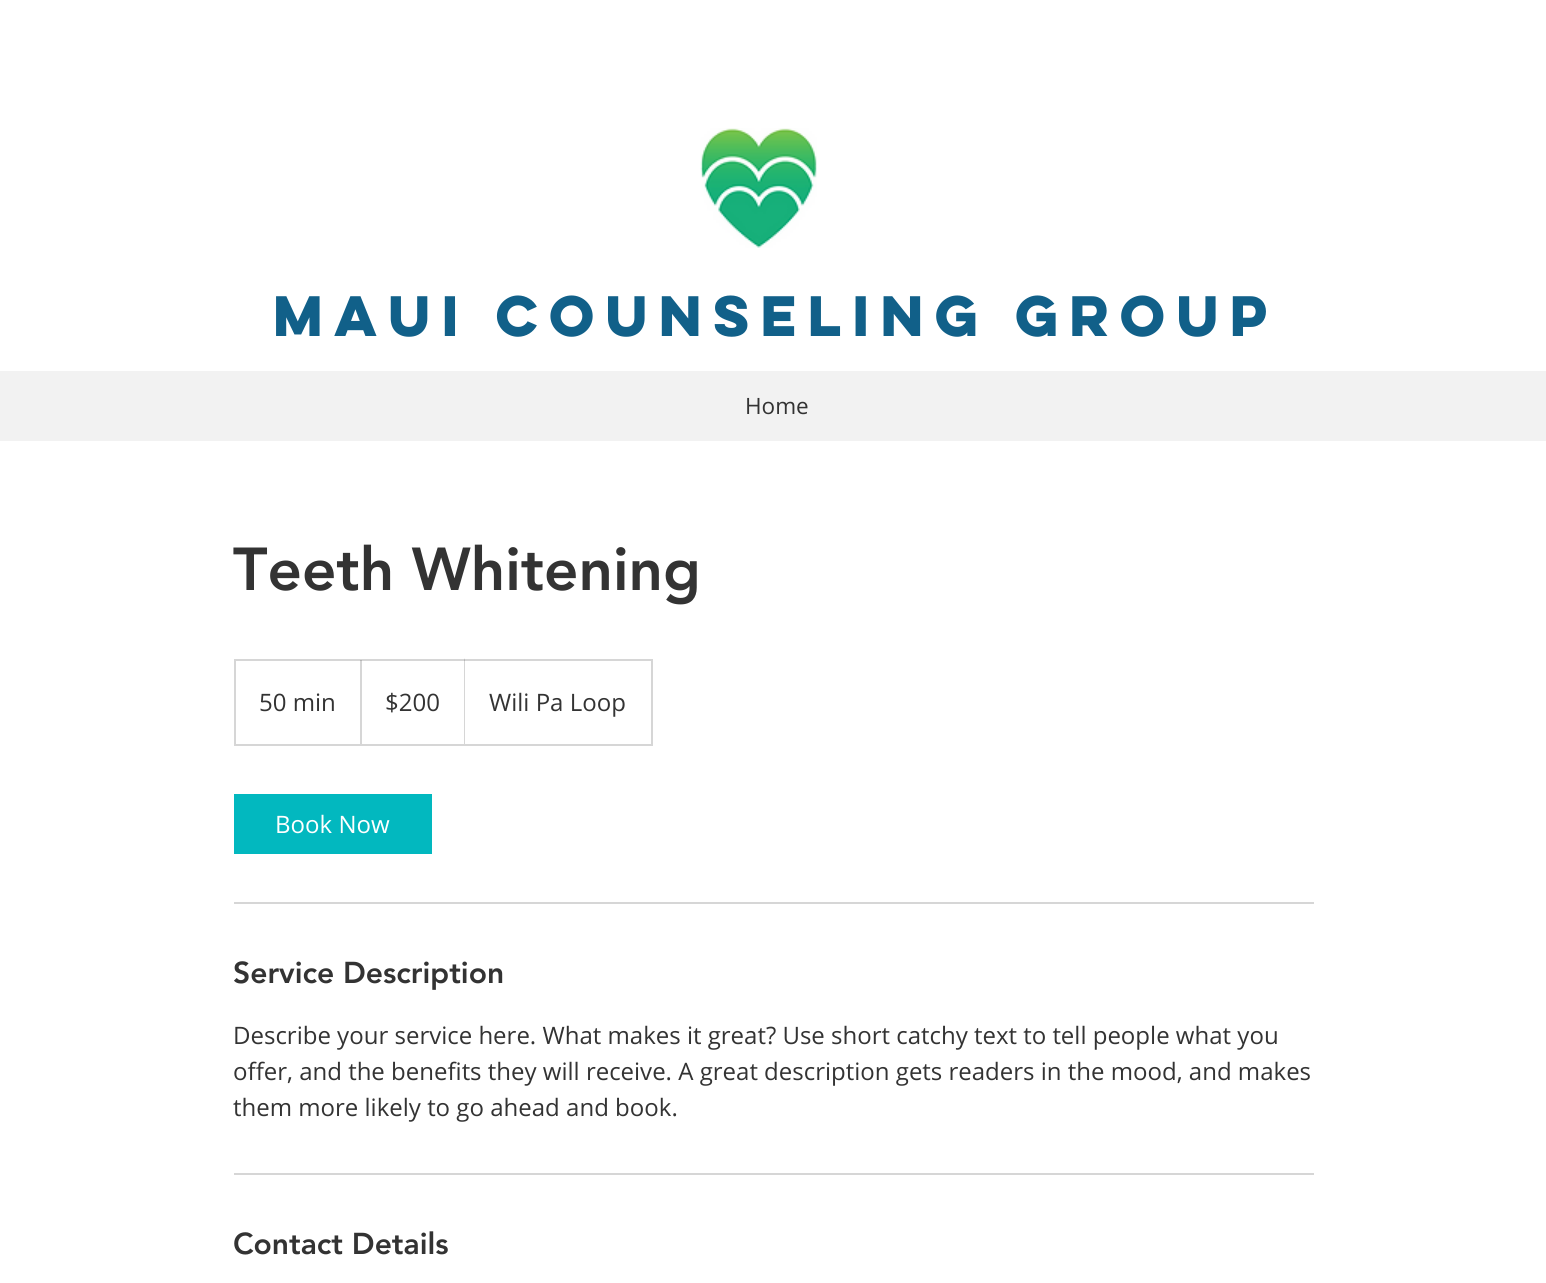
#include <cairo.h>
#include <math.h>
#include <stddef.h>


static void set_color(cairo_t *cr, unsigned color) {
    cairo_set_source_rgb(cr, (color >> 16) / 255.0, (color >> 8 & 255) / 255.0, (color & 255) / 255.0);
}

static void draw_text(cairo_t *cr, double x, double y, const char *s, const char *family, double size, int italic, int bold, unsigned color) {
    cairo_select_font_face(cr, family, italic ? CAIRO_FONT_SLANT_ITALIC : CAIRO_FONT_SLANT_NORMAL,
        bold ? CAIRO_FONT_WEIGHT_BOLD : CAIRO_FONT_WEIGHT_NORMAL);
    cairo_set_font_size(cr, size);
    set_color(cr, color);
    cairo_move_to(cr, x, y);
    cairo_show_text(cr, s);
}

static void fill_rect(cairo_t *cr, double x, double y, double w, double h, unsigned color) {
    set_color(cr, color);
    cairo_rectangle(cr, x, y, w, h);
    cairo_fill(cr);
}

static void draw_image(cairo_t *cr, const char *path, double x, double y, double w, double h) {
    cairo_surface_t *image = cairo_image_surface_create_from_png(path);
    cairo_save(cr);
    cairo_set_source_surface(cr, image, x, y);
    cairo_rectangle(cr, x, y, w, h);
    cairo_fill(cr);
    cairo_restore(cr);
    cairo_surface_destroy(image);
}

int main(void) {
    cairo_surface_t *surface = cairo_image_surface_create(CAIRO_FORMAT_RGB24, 1546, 1283);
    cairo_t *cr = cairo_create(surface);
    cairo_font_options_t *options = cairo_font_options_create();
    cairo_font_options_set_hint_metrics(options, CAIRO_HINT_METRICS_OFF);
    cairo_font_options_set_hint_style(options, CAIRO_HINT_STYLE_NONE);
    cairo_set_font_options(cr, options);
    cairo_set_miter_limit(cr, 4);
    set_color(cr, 0xFFFFFF);
    cairo_paint(cr);
    draw_image(cr, "assets/img1.png", 700, 128, 117, 120);
    draw_text(cr, 273, 336, "MAUI cOUNSELING gROUP", "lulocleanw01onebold", 51, 0, 1, 0x116089);
    fill_rect(cr, 0, 371, 1546, 70, 0xF2F2F2);
    draw_text(cr, 745, 414, "Home", "Open Sans", 22.5, 0, 0, 0x333333);
    draw_text(cr, 233, 590, "Teeth Whitening", "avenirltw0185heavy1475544 Black", 60, 0, 0, 0x333333);
    cairo_rectangle(cr, 235, 660, 417, 85);
    set_color(cr, 0xD6D6D6);
    cairo_stroke(cr);
    draw_text(cr, 259, 711, "50 min", "Open Sans", 24, 0, 0, 0x333333);
    cairo_save(cr);
    cairo_rectangle(cr, 236, 660, 415, 84);
    cairo_clip(cr);
    cairo_set_source_rgba(cr, 0.2, 0.2, 0.2, 0.2);
    cairo_new_path(cr);
    cairo_move_to(cr, 360, 744);
    cairo_line_to(cr, 360, 658);
    cairo_line_to(cr, 362, 660);
    cairo_line_to(cr, 362, 744);
    cairo_close_path(cr);
    cairo_fill(cr);
    cairo_restore(cr);
    draw_text(cr, 385, 711, "$200", "Open Sans", 24, 0, 0, 0x333333);
    cairo_set_source_rgba(cr, 0.2, 0.2, 0.2, 0.2);
    cairo_new_path(cr);
    cairo_move_to(cr, 464, 744);
    cairo_line_to(cr, 464, 658);
    cairo_line_to(cr, 465, 660);
    cairo_line_to(cr, 465, 744);
    cairo_close_path(cr);
    cairo_fill(cr);
    draw_text(cr, 489, 711, "Wili Pa Loop", "Open Sans", 24, 0, 0, 0x333333);
    fill_rect(cr, 234, 794, 198, 60, 0x02B8BF);
    draw_text(cr, 275, 833, "Book Now", "Open Sans", 24, 0, 0, 0xFFFFFF);
    fill_rect(cr, 234, 902, 1080, 2, 0xD6D6D6);
    draw_text(cr, 233, 983, "Service Description", "avenirltw0185heavy1475544 Black", 30, 0, 0, 0x333333);
    draw_text(cr, 233, 1044, "Describe your service here. What makes it great? Use short catchy text to tell people what you", "Open Sans", 24, 0, 0, 0x333333);
    draw_text(cr, 233, 1080, "offer, and the benefits they will receive. A great description gets readers in the mood, and makes", "Open Sans", 24, 0, 0, 0x333333);
    draw_text(cr, 233, 1116, "them more likely to go ahead and book.", "Open Sans", 24, 0, 0, 0x333333);
    fill_rect(cr, 234, 1173, 1080, 2, 0xD6D6D6);
    draw_text(cr, 233, 1254, "Contact Details", "avenirltw0185heavy1475544 Black", 30, 0, 0, 0x333333);
    cairo_surface_write_to_png(surface, "output.png");
    cairo_font_options_destroy(options);
    cairo_destroy(cr);
    cairo_surface_destroy(surface);
    return 0;
}
